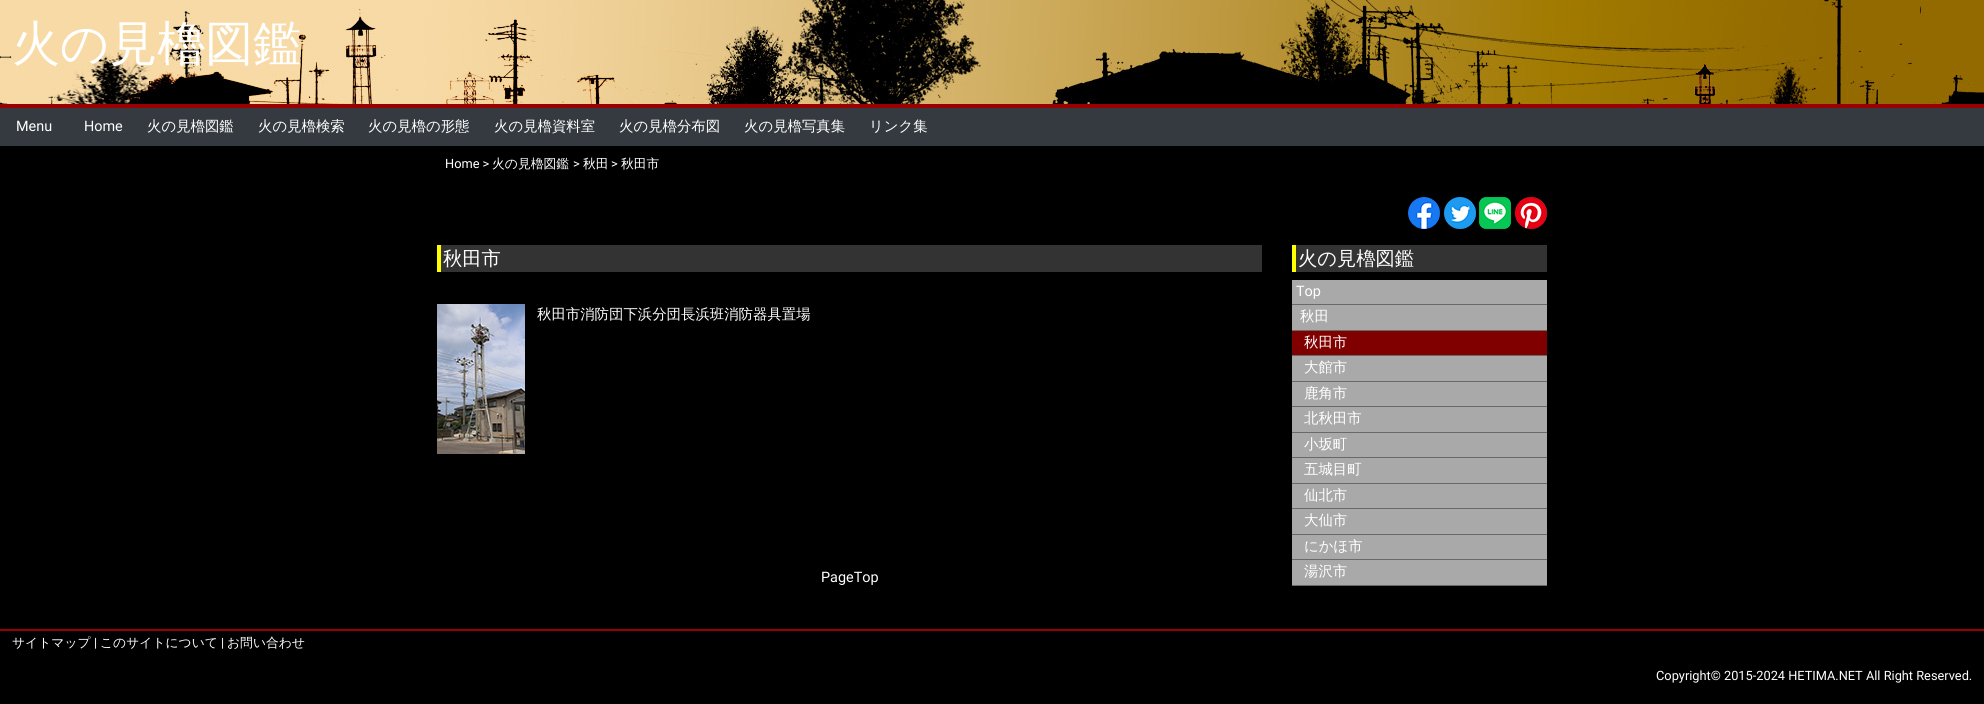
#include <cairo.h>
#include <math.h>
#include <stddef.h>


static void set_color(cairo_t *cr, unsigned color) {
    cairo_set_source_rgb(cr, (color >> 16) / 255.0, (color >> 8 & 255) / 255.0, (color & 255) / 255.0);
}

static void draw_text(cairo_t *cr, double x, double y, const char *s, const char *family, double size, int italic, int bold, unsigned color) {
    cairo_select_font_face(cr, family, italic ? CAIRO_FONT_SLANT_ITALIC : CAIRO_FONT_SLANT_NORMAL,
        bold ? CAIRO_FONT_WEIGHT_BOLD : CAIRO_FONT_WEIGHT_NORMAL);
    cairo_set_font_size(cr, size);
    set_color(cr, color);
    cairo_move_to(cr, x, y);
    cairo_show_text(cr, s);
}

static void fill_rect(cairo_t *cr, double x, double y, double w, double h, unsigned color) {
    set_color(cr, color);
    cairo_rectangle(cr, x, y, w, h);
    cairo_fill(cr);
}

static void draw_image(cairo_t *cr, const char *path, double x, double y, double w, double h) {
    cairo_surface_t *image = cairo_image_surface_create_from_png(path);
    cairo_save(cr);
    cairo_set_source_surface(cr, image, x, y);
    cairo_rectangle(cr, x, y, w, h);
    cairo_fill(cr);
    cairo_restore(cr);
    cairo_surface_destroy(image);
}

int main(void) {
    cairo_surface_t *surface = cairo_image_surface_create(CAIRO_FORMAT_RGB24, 1984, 704);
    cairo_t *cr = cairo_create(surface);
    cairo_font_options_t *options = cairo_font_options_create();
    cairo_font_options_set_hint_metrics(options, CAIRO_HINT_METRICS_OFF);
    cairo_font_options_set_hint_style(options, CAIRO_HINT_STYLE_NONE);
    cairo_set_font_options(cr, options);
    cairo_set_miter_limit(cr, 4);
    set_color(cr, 0x000000);
    cairo_paint(cr);
    draw_image(cr, "assets/img1.png", 0, 0, 1984, 104);
    fill_rect(cr, 0, 104, 1984, 4, 0x990000);
    draw_text(cr, 12, 60, "火の見櫓図鑑", "WenQuanYi Zen Hei Medium", 48, 0, 0, 0xFFFFFF);
    fill_rect(cr, 0, 108, 1984, 38, 0x343A40);
    draw_text(cr, 16, 131, "Menu", "Roboto", 14.4, 0, 0, 0xFFFFFF);
    draw_text(cr, 84, 131, "Home", "Roboto", 14.4, 0, 0, 0xFFFFFF);
    draw_text(cr, 147, 131, "火の見櫓図鑑", "WenQuanYi Zen Hei Medium", 14.4, 0, 0, 0xFFFFFF);
    draw_text(cr, 258, 131, "火の見櫓検索", "WenQuanYi Zen Hei Medium", 14.4, 0, 0, 0xFFFFFF);
    draw_text(cr, 368, 131, "火の見櫓の形態", "WenQuanYi Zen Hei Medium", 14.4, 0, 0, 0xFFFFFF);
    draw_text(cr, 494, 131, "火の見櫓資料室", "WenQuanYi Zen Hei Medium", 14.4, 0, 0, 0xFFFFFF);
    draw_text(cr, 619, 131, "火の見櫓分布図", "WenQuanYi Zen Hei Medium", 14.4, 0, 0, 0xFFFFFF);
    draw_text(cr, 744, 131, "火の見櫓写真集", "WenQuanYi Zen Hei Medium", 14.4, 0, 0, 0xFFFFFF);
    draw_text(cr, 869, 131, "リンク集", "WenQuanYi Zen Hei Medium", 14.4, 0, 0, 0xFFFFFF);
    draw_text(cr, 445, 168, "Home >", "Roboto", 12.8, 0, 0, 0xFFFFFF);
    draw_text(cr, 492, 168, "火の見櫓図鑑", "WenQuanYi Zen Hei Medium", 12.8, 0, 0, 0xFFFFFF);
    draw_text(cr, 573, 168, ">", "Roboto", 12.8, 0, 0, 0xFFFFFF);
    draw_text(cr, 583, 168, "秋田", "WenQuanYi Zen Hei Medium", 12.8, 0, 0, 0xFFFFFF);
    draw_text(cr, 611, 168, ">", "Roboto", 12.8, 0, 0, 0xFFFFFF);
    draw_text(cr, 621, 168, "秋田市", "WenQuanYi Zen Hei Medium", 12.8, 0, 0, 0xFFFFFF);
    draw_image(cr, "assets/img2.png", 1408, 197, 32, 32);
    draw_image(cr, "assets/img3.png", 1444, 197, 32, 32);
    draw_image(cr, "assets/img4.png", 1479, 197, 32, 32);
    draw_image(cr, "assets/img5.png", 1515, 197, 32, 32);
    fill_rect(cr, 441, 245, 821, 27, 0x333333);
    fill_rect(cr, 437, 245, 4, 27, 0xFFFF00);
    draw_text(cr, 443, 265, "秋田市", "WenQuanYi Zen Hei Medium", 19.25, 0, 0, 0xFFFFFF);
    draw_image(cr, "assets/img6.png", 437, 304, 88, 150);
    draw_text(cr, 537, 319, "秋田市消防団下浜分団長浜班消防器具置場", "WenQuanYi Zen Hei Medium", 14.4, 0, 0, 0xFFFFFF);
    draw_text(cr, 821, 582, "PageTop", "Roboto", 14.4, 0, 0, 0xFFFFFF);
    fill_rect(cr, 1296, 245, 251, 27, 0x333333);
    fill_rect(cr, 1292, 245, 4, 27, 0xFFFF00);
    draw_text(cr, 1298, 265, "火の見櫓図鑑", "WenQuanYi Zen Hei Medium", 19.25, 0, 0, 0xFFFFFF);
    fill_rect(cr, 1292, 280, 255, 24, 0xA9A9A9);
    fill_rect(cr, 1292, 304, 255, 1, 0x696969);
    draw_text(cr, 1296, 296, "Top", "Roboto", 14.4, 0, 0, 0xFFFFFF);
    fill_rect(cr, 1292, 305, 255, 25, 0xA9A9A9);
    fill_rect(cr, 1292, 330, 255, 1, 0x696969);
    draw_text(cr, 1300, 321, "秋田", "WenQuanYi Zen Hei Medium", 14.4, 0, 0, 0xFFFFFF);
    fill_rect(cr, 1292, 331, 255, 24, 0x800000);
    fill_rect(cr, 1292, 355, 255, 1, 0x696969);
    draw_text(cr, 1304, 347, "秋田市", "WenQuanYi Zen Hei Medium", 14.4, 0, 0, 0xFFFFFF);
    fill_rect(cr, 1292, 356, 255, 25, 0xA9A9A9);
    fill_rect(cr, 1292, 381, 255, 1, 0x696969);
    draw_text(cr, 1304, 372, "大館市", "WenQuanYi Zen Hei Medium", 14.4, 0, 0, 0xFFFFFF);
    fill_rect(cr, 1292, 382, 255, 24, 0xA9A9A9);
    fill_rect(cr, 1292, 406, 255, 1, 0x696969);
    draw_text(cr, 1304, 398, "鹿角市", "WenQuanYi Zen Hei Medium", 14.4, 0, 0, 0xFFFFFF);
    fill_rect(cr, 1292, 407, 255, 25, 0xA9A9A9);
    fill_rect(cr, 1292, 432, 255, 1, 0x696969);
    draw_text(cr, 1304, 423, "北秋田市", "WenQuanYi Zen Hei Medium", 14.4, 0, 0, 0xFFFFFF);
    fill_rect(cr, 1292, 433, 255, 24, 0xA9A9A9);
    fill_rect(cr, 1292, 457, 255, 1, 0x696969);
    draw_text(cr, 1304, 449, "小坂町", "WenQuanYi Zen Hei Medium", 14.4, 0, 0, 0xFFFFFF);
    fill_rect(cr, 1292, 458, 255, 25, 0xA9A9A9);
    fill_rect(cr, 1292, 483, 255, 1, 0x696969);
    draw_text(cr, 1304, 474, "五城目町", "WenQuanYi Zen Hei Medium", 14.4, 0, 0, 0xFFFFFF);
    fill_rect(cr, 1292, 484, 255, 24, 0xA9A9A9);
    fill_rect(cr, 1292, 508, 255, 1, 0x696969);
    draw_text(cr, 1304, 500, "仙北市", "WenQuanYi Zen Hei Medium", 14.4, 0, 0, 0xFFFFFF);
    fill_rect(cr, 1292, 509, 255, 25, 0xA9A9A9);
    fill_rect(cr, 1292, 534, 255, 1, 0x696969);
    draw_text(cr, 1304, 525, "大仙市", "WenQuanYi Zen Hei Medium", 14.4, 0, 0, 0xFFFFFF);
    fill_rect(cr, 1292, 535, 255, 24, 0xA9A9A9);
    fill_rect(cr, 1292, 559, 255, 1, 0x696969);
    draw_text(cr, 1304, 551, "にかほ市", "WenQuanYi Zen Hei Medium", 14.4, 0, 0, 0xFFFFFF);
    fill_rect(cr, 1292, 560, 255, 25, 0xA9A9A9);
    fill_rect(cr, 1292, 585, 255, 1, 0x696969);
    draw_text(cr, 1304, 576, "湯沢市", "WenQuanYi Zen Hei Medium", 14.4, 0, 0, 0xFFFFFF);
    fill_rect(cr, 0, 629, 1984, 2, 0x990000);
    draw_text(cr, 12, 647, "サイトマップ", "WenQuanYi Zen Hei Medium", 12.8, 0, 0, 0xFFFFFF);
    draw_text(cr, 94, 647, "|", "Roboto", 12.8, 0, 0, 0xFFFFFF);
    draw_text(cr, 100, 647, "このサイトについて", "WenQuanYi Zen Hei Medium", 12.8, 0, 0, 0xFFFFFF);
    draw_text(cr, 221, 647, "|", "Roboto", 12.8, 0, 0, 0xFFFFFF);
    draw_text(cr, 227, 647, "お問い合わせ", "WenQuanYi Zen Hei Medium", 12.8, 0, 0, 0xFFFFFF);
    draw_text(cr, 1656, 680, "Copyright© 2015-2024 HETIMA.NET All Right Reserved.", "Roboto", 12.8, 0, 0, 0xFFFFFF);
    cairo_surface_write_to_png(surface, "output.png");
    cairo_font_options_destroy(options);
    cairo_destroy(cr);
    cairo_surface_destroy(surface);
    return 0;
}
